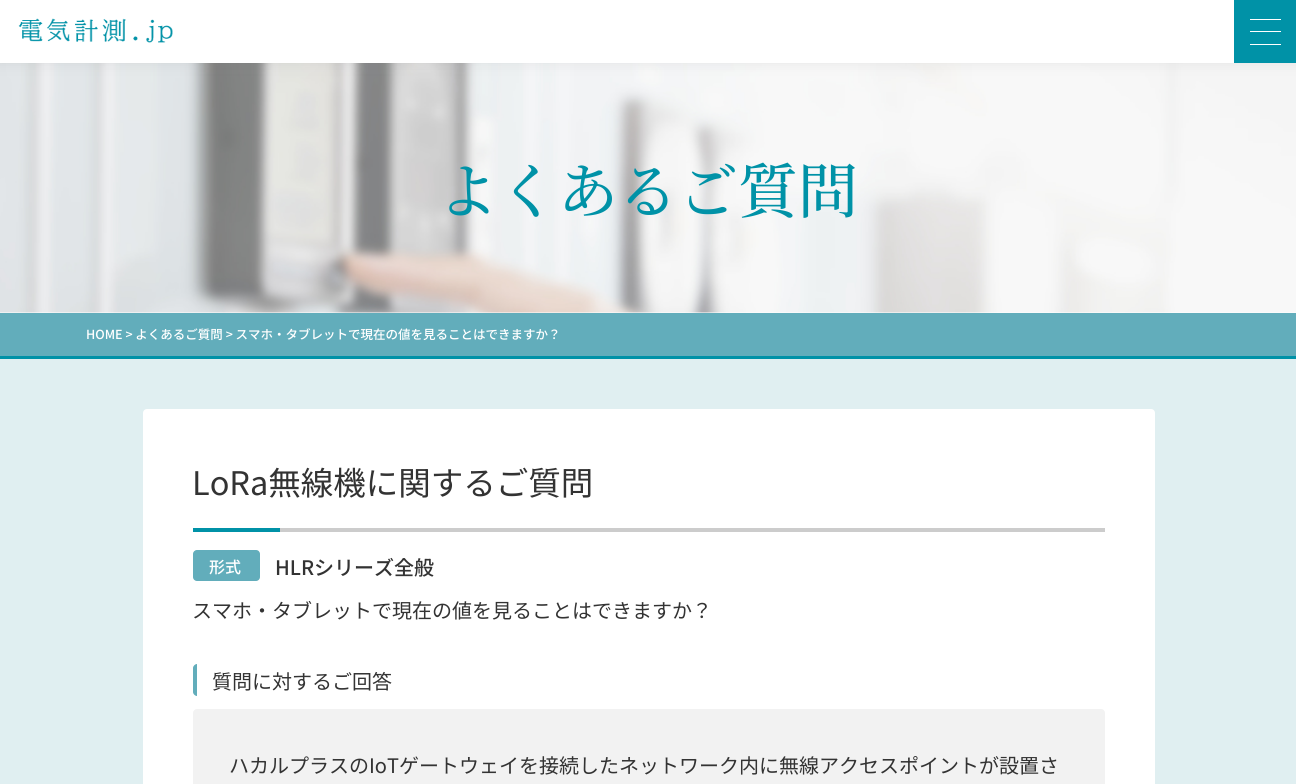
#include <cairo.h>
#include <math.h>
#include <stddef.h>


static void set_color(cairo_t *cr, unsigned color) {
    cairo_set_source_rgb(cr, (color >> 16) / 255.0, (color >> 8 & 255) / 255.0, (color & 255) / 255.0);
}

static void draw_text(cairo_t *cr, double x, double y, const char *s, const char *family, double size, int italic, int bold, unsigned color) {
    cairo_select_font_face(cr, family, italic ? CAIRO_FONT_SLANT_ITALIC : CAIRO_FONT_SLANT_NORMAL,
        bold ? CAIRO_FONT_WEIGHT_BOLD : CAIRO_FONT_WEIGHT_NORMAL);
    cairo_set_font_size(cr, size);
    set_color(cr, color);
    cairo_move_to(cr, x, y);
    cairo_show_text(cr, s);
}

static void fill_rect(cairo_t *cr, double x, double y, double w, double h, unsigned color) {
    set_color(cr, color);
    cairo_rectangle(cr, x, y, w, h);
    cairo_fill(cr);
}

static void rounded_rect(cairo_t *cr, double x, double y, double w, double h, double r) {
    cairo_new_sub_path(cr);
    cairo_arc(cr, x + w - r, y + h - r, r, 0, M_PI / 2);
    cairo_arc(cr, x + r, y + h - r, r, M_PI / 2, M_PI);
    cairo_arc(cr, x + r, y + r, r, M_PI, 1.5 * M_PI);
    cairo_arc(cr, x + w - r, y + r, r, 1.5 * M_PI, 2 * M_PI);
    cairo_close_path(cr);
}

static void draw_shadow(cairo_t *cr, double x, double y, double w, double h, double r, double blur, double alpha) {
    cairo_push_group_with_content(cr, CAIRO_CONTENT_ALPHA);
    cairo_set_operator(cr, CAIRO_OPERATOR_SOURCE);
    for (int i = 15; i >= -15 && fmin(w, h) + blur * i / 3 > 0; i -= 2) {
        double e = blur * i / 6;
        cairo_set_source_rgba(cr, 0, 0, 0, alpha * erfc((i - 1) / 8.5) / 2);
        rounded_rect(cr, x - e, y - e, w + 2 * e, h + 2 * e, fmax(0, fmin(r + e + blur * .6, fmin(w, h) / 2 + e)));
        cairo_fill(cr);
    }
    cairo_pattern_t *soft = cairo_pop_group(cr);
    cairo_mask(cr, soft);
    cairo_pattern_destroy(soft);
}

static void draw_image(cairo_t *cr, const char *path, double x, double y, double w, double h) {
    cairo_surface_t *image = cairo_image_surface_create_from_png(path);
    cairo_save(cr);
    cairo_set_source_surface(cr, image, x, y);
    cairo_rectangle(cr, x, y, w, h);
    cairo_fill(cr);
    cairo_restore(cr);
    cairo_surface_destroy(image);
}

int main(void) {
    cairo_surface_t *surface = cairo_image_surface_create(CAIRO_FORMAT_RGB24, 1296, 784);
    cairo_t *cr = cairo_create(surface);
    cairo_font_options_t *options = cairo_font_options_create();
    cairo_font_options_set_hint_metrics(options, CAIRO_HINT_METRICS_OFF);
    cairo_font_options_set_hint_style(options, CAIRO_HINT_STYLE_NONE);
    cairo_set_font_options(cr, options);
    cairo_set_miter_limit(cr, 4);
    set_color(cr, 0xFFFFFF);
    cairo_paint(cr);
    draw_image(cr, "assets/img2.png", 0, 63, 1296, 250);
    set_color(cr, 0x666666);
    draw_shadow(cr, -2, -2, 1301, 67, 0, 6, 0.1);
    fill_rect(cr, 0, 0, 1234, 63, 0xFFFFFF);
    draw_image(cr, "assets/img1.png", 18, 18, 155, 25);
    fill_rect(cr, 1234, 0, 62, 63, 0x0092A7);
    fill_rect(cr, 1250, 19, 31, 1, 0xFFFFFF);
    fill_rect(cr, 1250, 31, 31, 1, 0xFFFFFF);
    fill_rect(cr, 1250, 44, 31, 1, 0xFFFFFF);
    draw_text(cr, 438, 213, "よくあるご質問", "Noto Serif JP ExtraLight", 60, 0, 0, 0x0092A7);
    fill_rect(cr, 0, 313, 1296, 43, 0x62ADBB);
    fill_rect(cr, 0, 356, 1296, 3, 0x0092A7);
    draw_text(cr, 86, 339, "HOME > よくあるご質問 > スマホ・タブレットで現在の値を見ることはできますか？", "Noto Sans JP Medium", 12.5, 0, 0, 0xFFFFFF);
    fill_rect(cr, 0, 359, 1296, 425, 0xE0EFF1);
    set_color(cr, 0xFFFFFF);
    rounded_rect(cr, 143, 409, 1012, 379, 4);
    cairo_fill(cr);
    draw_text(cr, 192, 495, "LoRa無線機に関するご質問", "Noto Sans JP", 32.5, 0, 0, 0x333333);
    fill_rect(cr, 193, 528, 87, 4, 0x0092A7);
    fill_rect(cr, 280, 528, 825, 4, 0xCCCCCC);
    set_color(cr, 0x62ADBB);
    rounded_rect(cr, 193, 550, 67, 31, 4);
    cairo_fill(cr);
    draw_text(cr, 209, 573, "形式", "Noto Sans JP Medium", 16, 0, 0, 0xFFFFFF);
    draw_text(cr, 275, 575, "HLRシリーズ全般", "Noto Sans JP Medium", 20, 0, 0, 0x333333);
    draw_text(cr, 192, 618, "スマホ・タブレットで現在の値を見ることはできますか？", "Noto Sans JP", 20, 0, 0, 0x333333);
    set_color(cr, 0x62ADBB);
    cairo_new_path(cr);
    cairo_move_to(cr, 197, 664);
    cairo_line_to(cr, 197, 696);
    cairo_curve_to(cr, 195, 696, 193, 694, 193, 692);
    cairo_line_to(cr, 193, 668);
    cairo_curve_to(cr, 193, 666, 195, 664, 197, 664);
    cairo_close_path(cr);
    cairo_fill(cr);
    draw_text(cr, 212, 689, "質問に対するご回答", "Noto Sans JP", 20, 0, 0, 0x333333);
    set_color(cr, 0xF2F2F2);
    rounded_rect(cr, 193, 709, 912, 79, 4);
    cairo_fill(cr);
    draw_text(cr, 229, 773, "ハカルプラスのIoTゲートウェイを接続したネットワーク内に無線アクセスポイントが設置さ", "Noto Sans JP", 20, 0, 0, 0x333333);
    cairo_surface_write_to_png(surface, "output.png");
    cairo_font_options_destroy(options);
    cairo_destroy(cr);
    cairo_surface_destroy(surface);
    return 0;
}
